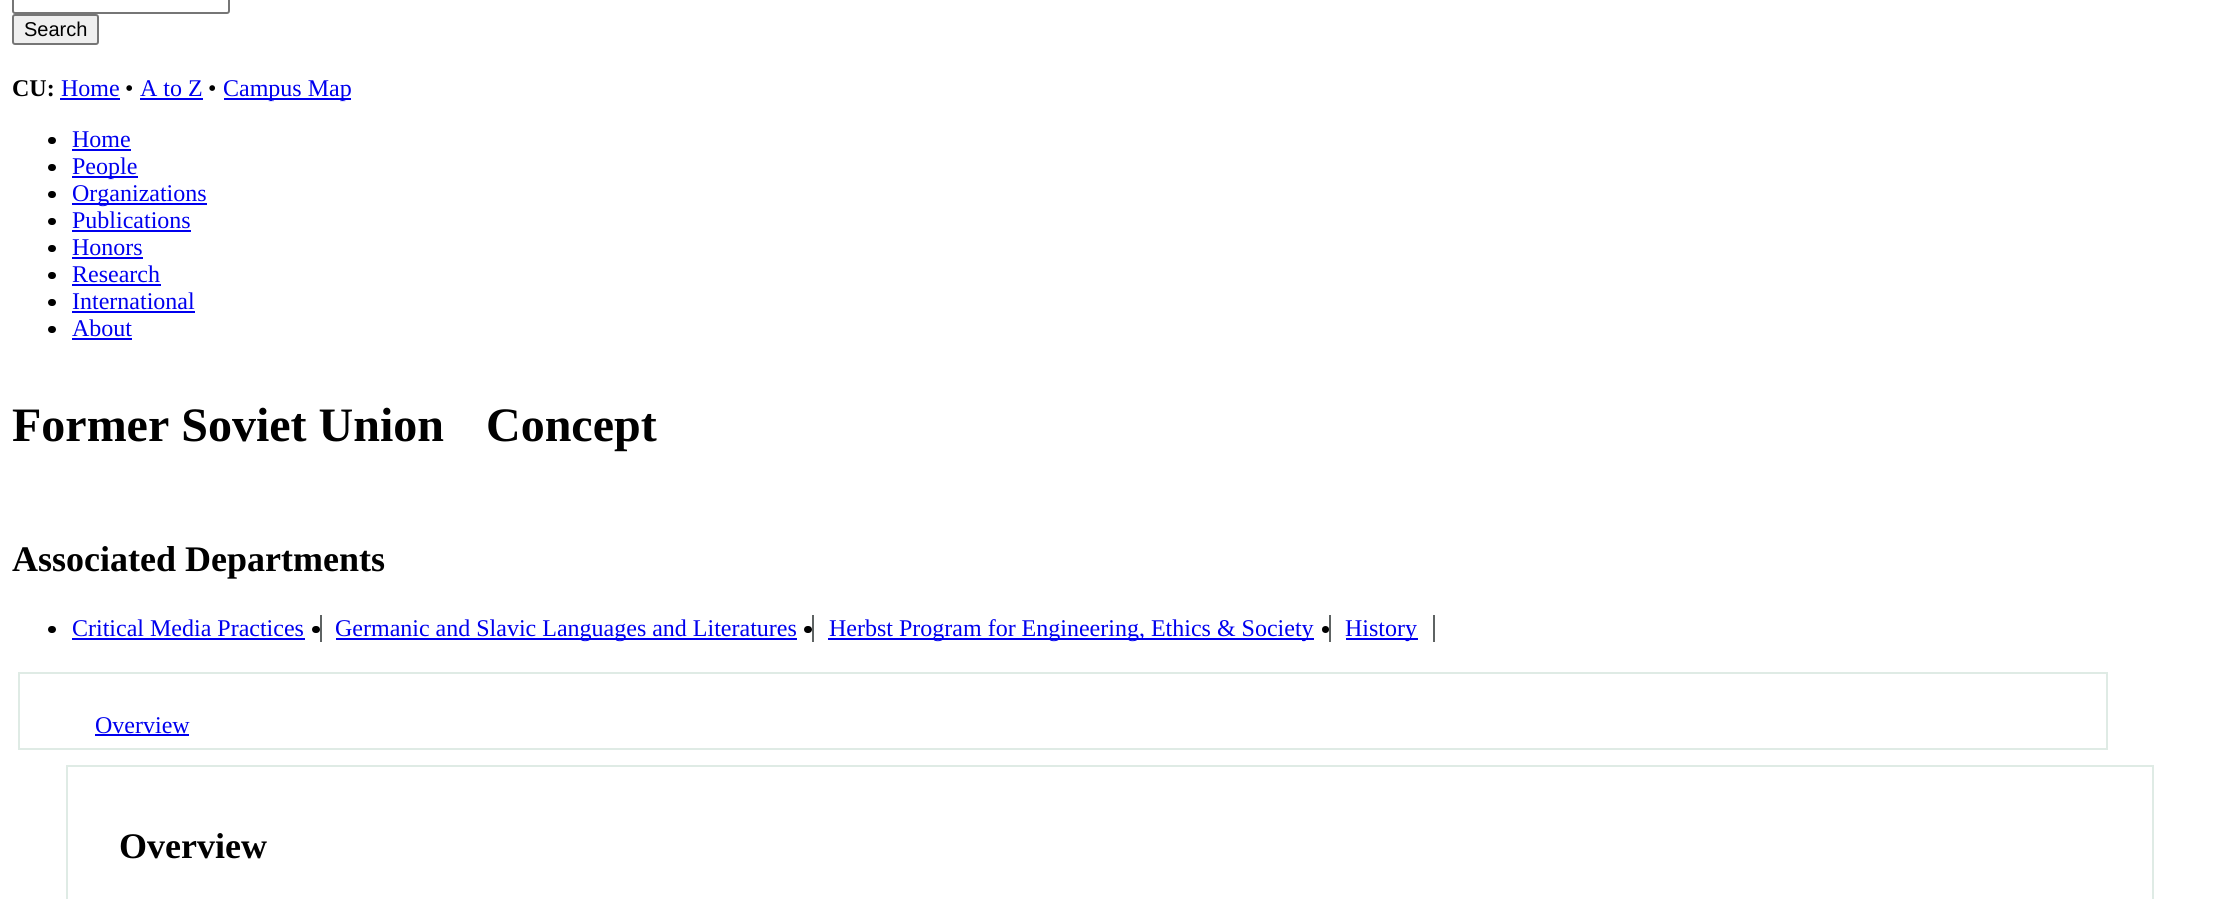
#include <cairo.h>
#include <math.h>
#include <stddef.h>


static void set_color(cairo_t *cr, unsigned color) {
    cairo_set_source_rgb(cr, (color >> 16) / 255.0, (color >> 8 & 255) / 255.0, (color & 255) / 255.0);
}

static void draw_text(cairo_t *cr, double x, double y, const char *s, const char *family, double size, int italic, int bold, unsigned color) {
    cairo_select_font_face(cr, family, italic ? CAIRO_FONT_SLANT_ITALIC : CAIRO_FONT_SLANT_NORMAL,
        bold ? CAIRO_FONT_WEIGHT_BOLD : CAIRO_FONT_WEIGHT_NORMAL);
    cairo_set_font_size(cr, size);
    set_color(cr, color);
    cairo_move_to(cr, x, y);
    cairo_show_text(cr, s);
}

static void fill_rect(cairo_t *cr, double x, double y, double w, double h, unsigned color) {
    set_color(cr, color);
    cairo_rectangle(cr, x, y, w, h);
    cairo_fill(cr);
}

static void rounded_rect(cairo_t *cr, double x, double y, double w, double h, double r) {
    cairo_new_sub_path(cr);
    cairo_arc(cr, x + w - r, y + h - r, r, 0, M_PI / 2);
    cairo_arc(cr, x + r, y + h - r, r, M_PI / 2, M_PI);
    cairo_arc(cr, x + r, y + r, r, M_PI, 1.5 * M_PI);
    cairo_arc(cr, x + w - r, y + r, r, 1.5 * M_PI, 2 * M_PI);
    cairo_close_path(cr);
}

int main(void) {
    cairo_surface_t *surface = cairo_image_surface_create(CAIRO_FORMAT_RGB24, 2220, 899);
    cairo_t *cr = cairo_create(surface);
    cairo_font_options_t *options = cairo_font_options_create();
    cairo_font_options_set_hint_metrics(options, CAIRO_HINT_METRICS_OFF);
    cairo_font_options_set_hint_style(options, CAIRO_HINT_STYLE_NONE);
    cairo_set_font_options(cr, options);
    cairo_set_miter_limit(cr, 4);
    set_color(cr, 0xFFFFFF);
    cairo_paint(cr);
    rounded_rect(cr, 13, -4, 216, 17, 2);
    set_color(cr, 0x767676);
    cairo_stroke(cr);
    set_color(cr, 0xEFEFEF);
    rounded_rect(cr, 13, 15, 85, 29, 2);
    cairo_fill_preserve(cr);
    set_color(cr, 0x767676);
    cairo_stroke(cr);
    draw_text(cr, 24, 36, "Search", "Liberation Sans", 20, 0, 0, 0x000000);
    draw_text(cr, 12, 96, "CU:", "Liberation Serif", 24, 0, 1, 0x000000);
    draw_text(cr, 61, 96, "Home", "Liberation Serif", 24, 0, 0, 0x0000EE);
    fill_rect(cr, 60, 98, 60, 2, 0x0000EE);
    draw_text(cr, 125, 96, "•", "Liberation Serif", 24, 0, 0, 0x000000);
    draw_text(cr, 140, 96, "A to Z", "Liberation Serif", 24, 0, 0, 0x0000EE);
    fill_rect(cr, 140, 98, 63, 2, 0x0000EE);
    draw_text(cr, 208, 96, "•", "Liberation Serif", 24, 0, 0, 0x000000);
    fill_rect(cr, 224, 98, 127, 2, 0x0000EE);
    draw_text(cr, 223, 96, "Campus Map", "Liberation Serif", 24, 0, 0, 0x0000EE);
    set_color(cr, 0x000000);
    rounded_rect(cr, 48, 137, 8, 7, 3.5);
    cairo_fill(cr);
    draw_text(cr, 72, 147, "Home", "Liberation Serif", 24, 0, 0, 0x0000EE);
    fill_rect(cr, 72, 149, 59, 2, 0x0000EE);
    set_color(cr, 0x000000);
    rounded_rect(cr, 48, 164, 8, 7, 3.5);
    cairo_fill(cr);
    fill_rect(cr, 72, 176, 66, 2, 0x0000EE);
    draw_text(cr, 72, 174, "People", "Liberation Serif", 24, 0, 0, 0x0000EE);
    set_color(cr, 0x000000);
    rounded_rect(cr, 48, 191, 8, 7, 3.5);
    cairo_fill(cr);
    fill_rect(cr, 72, 203, 135, 2, 0x0000EE);
    draw_text(cr, 72, 201, "Organizations", "Liberation Serif", 24, 0, 0, 0x0000EE);
    set_color(cr, 0x000000);
    rounded_rect(cr, 48, 218, 8, 7, 3.5);
    cairo_fill(cr);
    draw_text(cr, 72, 228, "Publications", "Liberation Serif", 24, 0, 0, 0x0000EE);
    fill_rect(cr, 72, 230, 119, 2, 0x0000EE);
    set_color(cr, 0x000000);
    rounded_rect(cr, 48, 245, 8, 7, 3.5);
    cairo_fill(cr);
    draw_text(cr, 72, 255, "Honors", "Liberation Serif", 24, 0, 0, 0x0000EE);
    fill_rect(cr, 72, 257, 71, 2, 0x0000EE);
    set_color(cr, 0x000000);
    rounded_rect(cr, 48, 272, 8, 7, 3.5);
    cairo_fill(cr);
    draw_text(cr, 72, 282, "Research", "Liberation Serif", 24, 0, 0, 0x0000EE);
    fill_rect(cr, 72, 284, 89, 2, 0x0000EE);
    set_color(cr, 0x000000);
    rounded_rect(cr, 48, 299, 8, 7, 3.5);
    cairo_fill(cr);
    draw_text(cr, 72, 309, "International", "Liberation Serif", 24, 0, 0, 0x0000EE);
    fill_rect(cr, 72, 311, 123, 2, 0x0000EE);
    set_color(cr, 0x000000);
    rounded_rect(cr, 48, 326, 8, 7, 3.5);
    cairo_fill(cr);
    draw_text(cr, 72, 336, "About", "Liberation Serif", 24, 0, 0, 0x0000EE);
    fill_rect(cr, 72, 338, 60, 2, 0x0000EE);
    draw_text(cr, 12, 441, "Former Soviet Union", "Liberation Serif", 48, 0, 1, 0x000000);
    draw_text(cr, 486, 441, "Concept", "Liberation Serif", 48, 0, 1, 0x000000);
    draw_text(cr, 12, 571, "Associated Departments", "Liberation Serif", 36, 0, 1, 0x000000);
    fill_rect(cr, 320, 615, 2, 27, 0x5E6363);
    set_color(cr, 0x000000);
    rounded_rect(cr, 48, 626, 8, 7, 3.5);
    cairo_fill(cr);
    draw_text(cr, 72, 636, "Critical Media Practices", "Liberation Serif", 24, 0, 0, 0x0000EE);
    fill_rect(cr, 72, 638, 233, 2, 0x0000EE);
    fill_rect(cr, 812, 615, 2, 27, 0x5E6363);
    set_color(cr, 0x000000);
    rounded_rect(cr, 312, 626, 8, 7, 3.5);
    cairo_fill(cr);
    fill_rect(cr, 336, 638, 461, 2, 0x0000EE);
    draw_text(cr, 335, 636, "Germanic and Slavic Languages and Literatures", "Liberation Serif", 24, 0, 0, 0x0000EE);
    fill_rect(cr, 1329, 615, 2, 27, 0x5E6363);
    set_color(cr, 0x000000);
    rounded_rect(cr, 804, 626, 8, 7, 3.5);
    cairo_fill(cr);
    fill_rect(cr, 828, 638, 486, 2, 0x0000EE);
    draw_text(cr, 829, 636, "Herbst Program for Engineering, Ethics & Society", "Liberation Serif", 24, 0, 0, 0x0000EE);
    fill_rect(cr, 1433, 615, 2, 27, 0x5E6363);
    set_color(cr, 0x000000);
    cairo_new_path(cr);
    cairo_arc(cr, 1325.5, 629.5, 3.5, 0, 2 * M_PI);
    cairo_fill(cr);
    fill_rect(cr, 1346, 638, 72, 2, 0x0000EE);
    draw_text(cr, 1345, 636, "History", "Liberation Serif", 24, 0, 0, 0x0000EE);
    cairo_rectangle(cr, 19, 673, 2088, 76);
    set_color(cr, 0xDFEBE5);
    cairo_stroke(cr);
    draw_text(cr, 95, 733, "Overview", "Liberation Serif", 24, 0, 0, 0x0000EE);
    fill_rect(cr, 95, 734, 94, 2, 0x0000EE);
    cairo_rectangle(cr, 67, 766, 2086, 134);
    set_color(cr, 0xDFEBE5);
    cairo_stroke(cr);
    draw_text(cr, 119, 858, "Overview", "Liberation Serif", 36, 0, 1, 0x000000);
    cairo_surface_write_to_png(surface, "output.png");
    cairo_font_options_destroy(options);
    cairo_destroy(cr);
    cairo_surface_destroy(surface);
    return 0;
}
